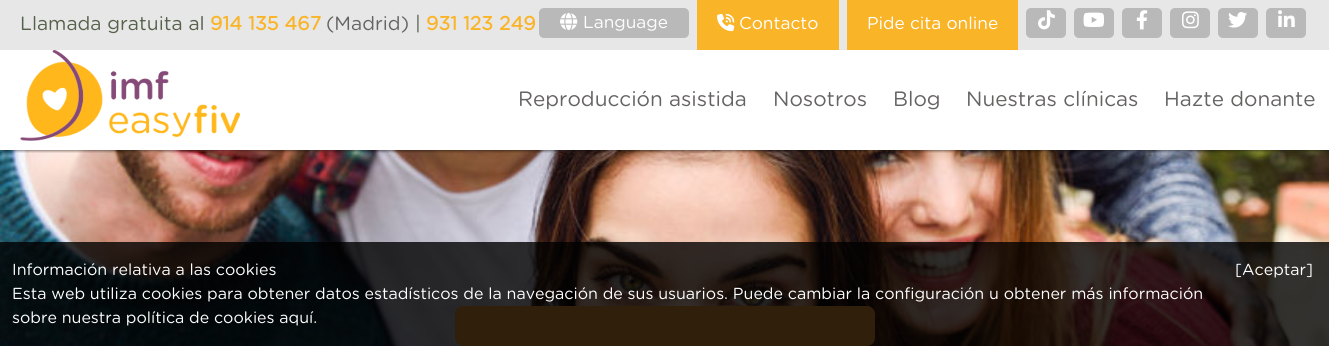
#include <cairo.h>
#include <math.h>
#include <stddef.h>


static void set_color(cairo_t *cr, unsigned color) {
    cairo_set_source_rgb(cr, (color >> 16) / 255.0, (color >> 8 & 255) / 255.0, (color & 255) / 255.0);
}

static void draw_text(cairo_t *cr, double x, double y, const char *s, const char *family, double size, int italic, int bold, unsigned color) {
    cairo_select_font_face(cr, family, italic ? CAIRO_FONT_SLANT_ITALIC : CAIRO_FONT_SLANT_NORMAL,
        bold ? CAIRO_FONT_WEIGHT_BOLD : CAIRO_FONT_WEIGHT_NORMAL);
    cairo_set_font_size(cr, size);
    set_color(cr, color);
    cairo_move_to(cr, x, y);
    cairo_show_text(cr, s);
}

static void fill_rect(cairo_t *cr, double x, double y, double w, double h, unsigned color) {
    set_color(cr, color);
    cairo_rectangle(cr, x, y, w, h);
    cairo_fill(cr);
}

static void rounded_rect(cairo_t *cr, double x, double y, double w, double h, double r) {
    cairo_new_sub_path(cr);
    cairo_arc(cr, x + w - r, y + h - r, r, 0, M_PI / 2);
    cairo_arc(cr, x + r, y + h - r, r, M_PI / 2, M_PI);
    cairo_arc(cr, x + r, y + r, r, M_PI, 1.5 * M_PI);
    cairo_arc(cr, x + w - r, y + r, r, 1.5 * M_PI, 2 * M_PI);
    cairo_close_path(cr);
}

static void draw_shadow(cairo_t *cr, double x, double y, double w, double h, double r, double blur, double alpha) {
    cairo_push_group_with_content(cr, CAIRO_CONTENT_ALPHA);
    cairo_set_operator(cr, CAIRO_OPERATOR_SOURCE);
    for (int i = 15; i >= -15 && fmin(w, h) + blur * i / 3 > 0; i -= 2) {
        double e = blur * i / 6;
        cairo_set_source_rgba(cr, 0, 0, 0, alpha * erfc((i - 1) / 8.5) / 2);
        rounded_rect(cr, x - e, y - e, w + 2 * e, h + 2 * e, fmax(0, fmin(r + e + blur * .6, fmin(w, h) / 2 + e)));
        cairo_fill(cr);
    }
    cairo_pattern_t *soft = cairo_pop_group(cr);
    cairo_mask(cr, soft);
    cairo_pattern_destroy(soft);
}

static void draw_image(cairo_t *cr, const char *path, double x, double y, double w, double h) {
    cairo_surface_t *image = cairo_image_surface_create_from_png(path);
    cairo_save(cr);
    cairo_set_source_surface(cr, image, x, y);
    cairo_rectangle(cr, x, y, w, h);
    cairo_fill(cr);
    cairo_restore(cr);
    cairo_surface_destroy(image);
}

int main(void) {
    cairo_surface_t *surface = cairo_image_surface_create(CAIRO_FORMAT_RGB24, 1329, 346);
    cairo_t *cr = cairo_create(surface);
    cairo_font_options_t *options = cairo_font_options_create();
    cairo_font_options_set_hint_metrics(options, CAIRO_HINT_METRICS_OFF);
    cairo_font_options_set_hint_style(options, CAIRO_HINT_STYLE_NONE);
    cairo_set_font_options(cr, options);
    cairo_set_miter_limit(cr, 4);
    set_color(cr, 0xFFFFFF);
    cairo_paint(cr);
    draw_image(cr, "assets/img10.png", 0, 150, 1329, 196);
    cairo_save(cr);
    cairo_rectangle(cr, 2, 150, 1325, 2);
    cairo_clip(cr);
    set_color(cr, 0x000000);
    draw_shadow(cr, 2, 5, 1325, 146, 0, 0.5, 0.2);
    cairo_restore(cr);
    cairo_save(cr);
    cairo_rectangle(cr, 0, 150, 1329, 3);
    cairo_clip(cr);
    set_color(cr, 0x000000);
    draw_shadow(cr, 0, 1, 1329, 150, 0, 2.5, 0.12);
    draw_shadow(cr, 0, 2, 1329, 150, 0, 1, 0.14);
    cairo_restore(cr);
    fill_rect(cr, 0, 0, 1329, 50, 0xE7E7E7);
    draw_text(cr, 20, 30, "Llamada gratuita al", "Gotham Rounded", 19.25, 0, 0, 0x56614B);
    draw_text(cr, 210, 30, "914 135 467", "Gotham Rounded", 19.25, 0, 1, 0xFAB428);
    draw_text(cr, 326, 30, "(Madrid)", "Gotham Rounded", 19.25, 0, 0, 0x666363);
    draw_text(cr, 415, 30, "|", "Gotham Rounded", 19.25, 0, 0, 0x56614B);
    draw_text(cr, 426, 30, "931 123 249", "Gotham Rounded", 19.25, 0, 1, 0xFAB428);
    set_color(cr, 0xB9B9B9);
    rounded_rect(cr, 539, 8, 150, 30, 5);
    cairo_fill(cr);
    draw_image(cr, "assets/img1.png", 560, 12, 18, 19);
    draw_text(cr, 583, 28, "Language", "Gotham Rounded", 17.25, 0, 0, 0xFFFFFF);
    fill_rect(cr, 697, 0, 142, 50, 0xFAB428);
    draw_image(cr, "assets/img2.png", 717, 13, 18, 19);
    draw_text(cr, 739, 29, "Contacto", "Gotham Rounded", 17.25, 0, 0, 0xFFFFFF);
    fill_rect(cr, 847, 0, 171, 50, 0xFAB428);
    draw_text(cr, 867, 29, "Pide cita online", "Gotham Rounded", 17.25, 0, 0, 0xFFFFFF);
    set_color(cr, 0xB9B9B9);
    rounded_rect(cr, 1026, 8, 40, 30, 5);
    cairo_fill(cr);
    draw_image(cr, "assets/img3.png", 1038, 10, 17, 20);
    rounded_rect(cr, 1074, 8, 40, 30, 5);
    cairo_fill(cr);
    draw_image(cr, "assets/img4.png", 1083, 12, 21, 15);
    rounded_rect(cr, 1122, 8, 40, 30, 5);
    cairo_fill(cr);
    draw_image(cr, "assets/img5.png", 1136, 10, 12, 20);
    rounded_rect(cr, 1170, 8, 40, 30, 5);
    cairo_fill(cr);
    draw_image(cr, "assets/img6.png", 1182, 11, 17, 18);
    rounded_rect(cr, 1218, 8, 40, 30, 5);
    cairo_fill(cr);
    draw_image(cr, "assets/img7.png", 1228, 12, 19, 16);
    rounded_rect(cr, 1266, 8, 40, 30, 5);
    cairo_fill(cr);
    draw_image(cr, "assets/img8.png", 1278, 10, 17, 17);
    draw_image(cr, "assets/img9.png", 20, 50, 220, 91);
    draw_text(cr, 518, 106, "Reproducción asistida", "Gotham Rounded", 20.75, 0, 0, 0x666363);
    draw_text(cr, 773, 106, "Nosotros", "Gotham Rounded", 20.75, 0, 0, 0x666363);
    draw_text(cr, 893, 106, "Blog", "Gotham Rounded", 20.75, 0, 0, 0x666363);
    draw_text(cr, 966, 106, "Nuestras clínicas", "Gotham Rounded", 20.75, 0, 0, 0x666363);
    draw_text(cr, 1164, 106, "Hazte donante", "Gotham Rounded", 20.75, 0, 0, 0x666363);
    set_color(cr, 0xF09C31);
    rounded_rect(cr, 455, 306, 420, 40, 8);
    cairo_fill(cr);
    cairo_set_source_rgba(cr, 0, 0, 0, 0.8);
    cairo_rectangle(cr, 0, 242, 1329, 104);
    cairo_fill(cr);
    draw_text(cr, 12, 275, "Información relativa a las cookies", "Gotham Rounded", 16, 0, 0, 0xFFFFFF);
    draw_text(cr, 12, 299, "Esta web utiliza cookies para obtener datos estadísticos de la navegación de sus usuarios. Puede cambiar la configuración u obtener más información", "Gotham Rounded", 16, 0, 0, 0xFFFFFF);
    draw_text(cr, 12, 323, "sobre nuestra política de cookies aquí.", "Gotham Rounded", 16, 0, 0, 0xFFFFFF);
    draw_text(cr, 1235, 275, "[Aceptar]", "Gotham Rounded", 16, 0, 0, 0xFFFFFF);
    cairo_surface_write_to_png(surface, "output.png");
    cairo_font_options_destroy(options);
    cairo_destroy(cr);
    cairo_surface_destroy(surface);
    return 0;
}
